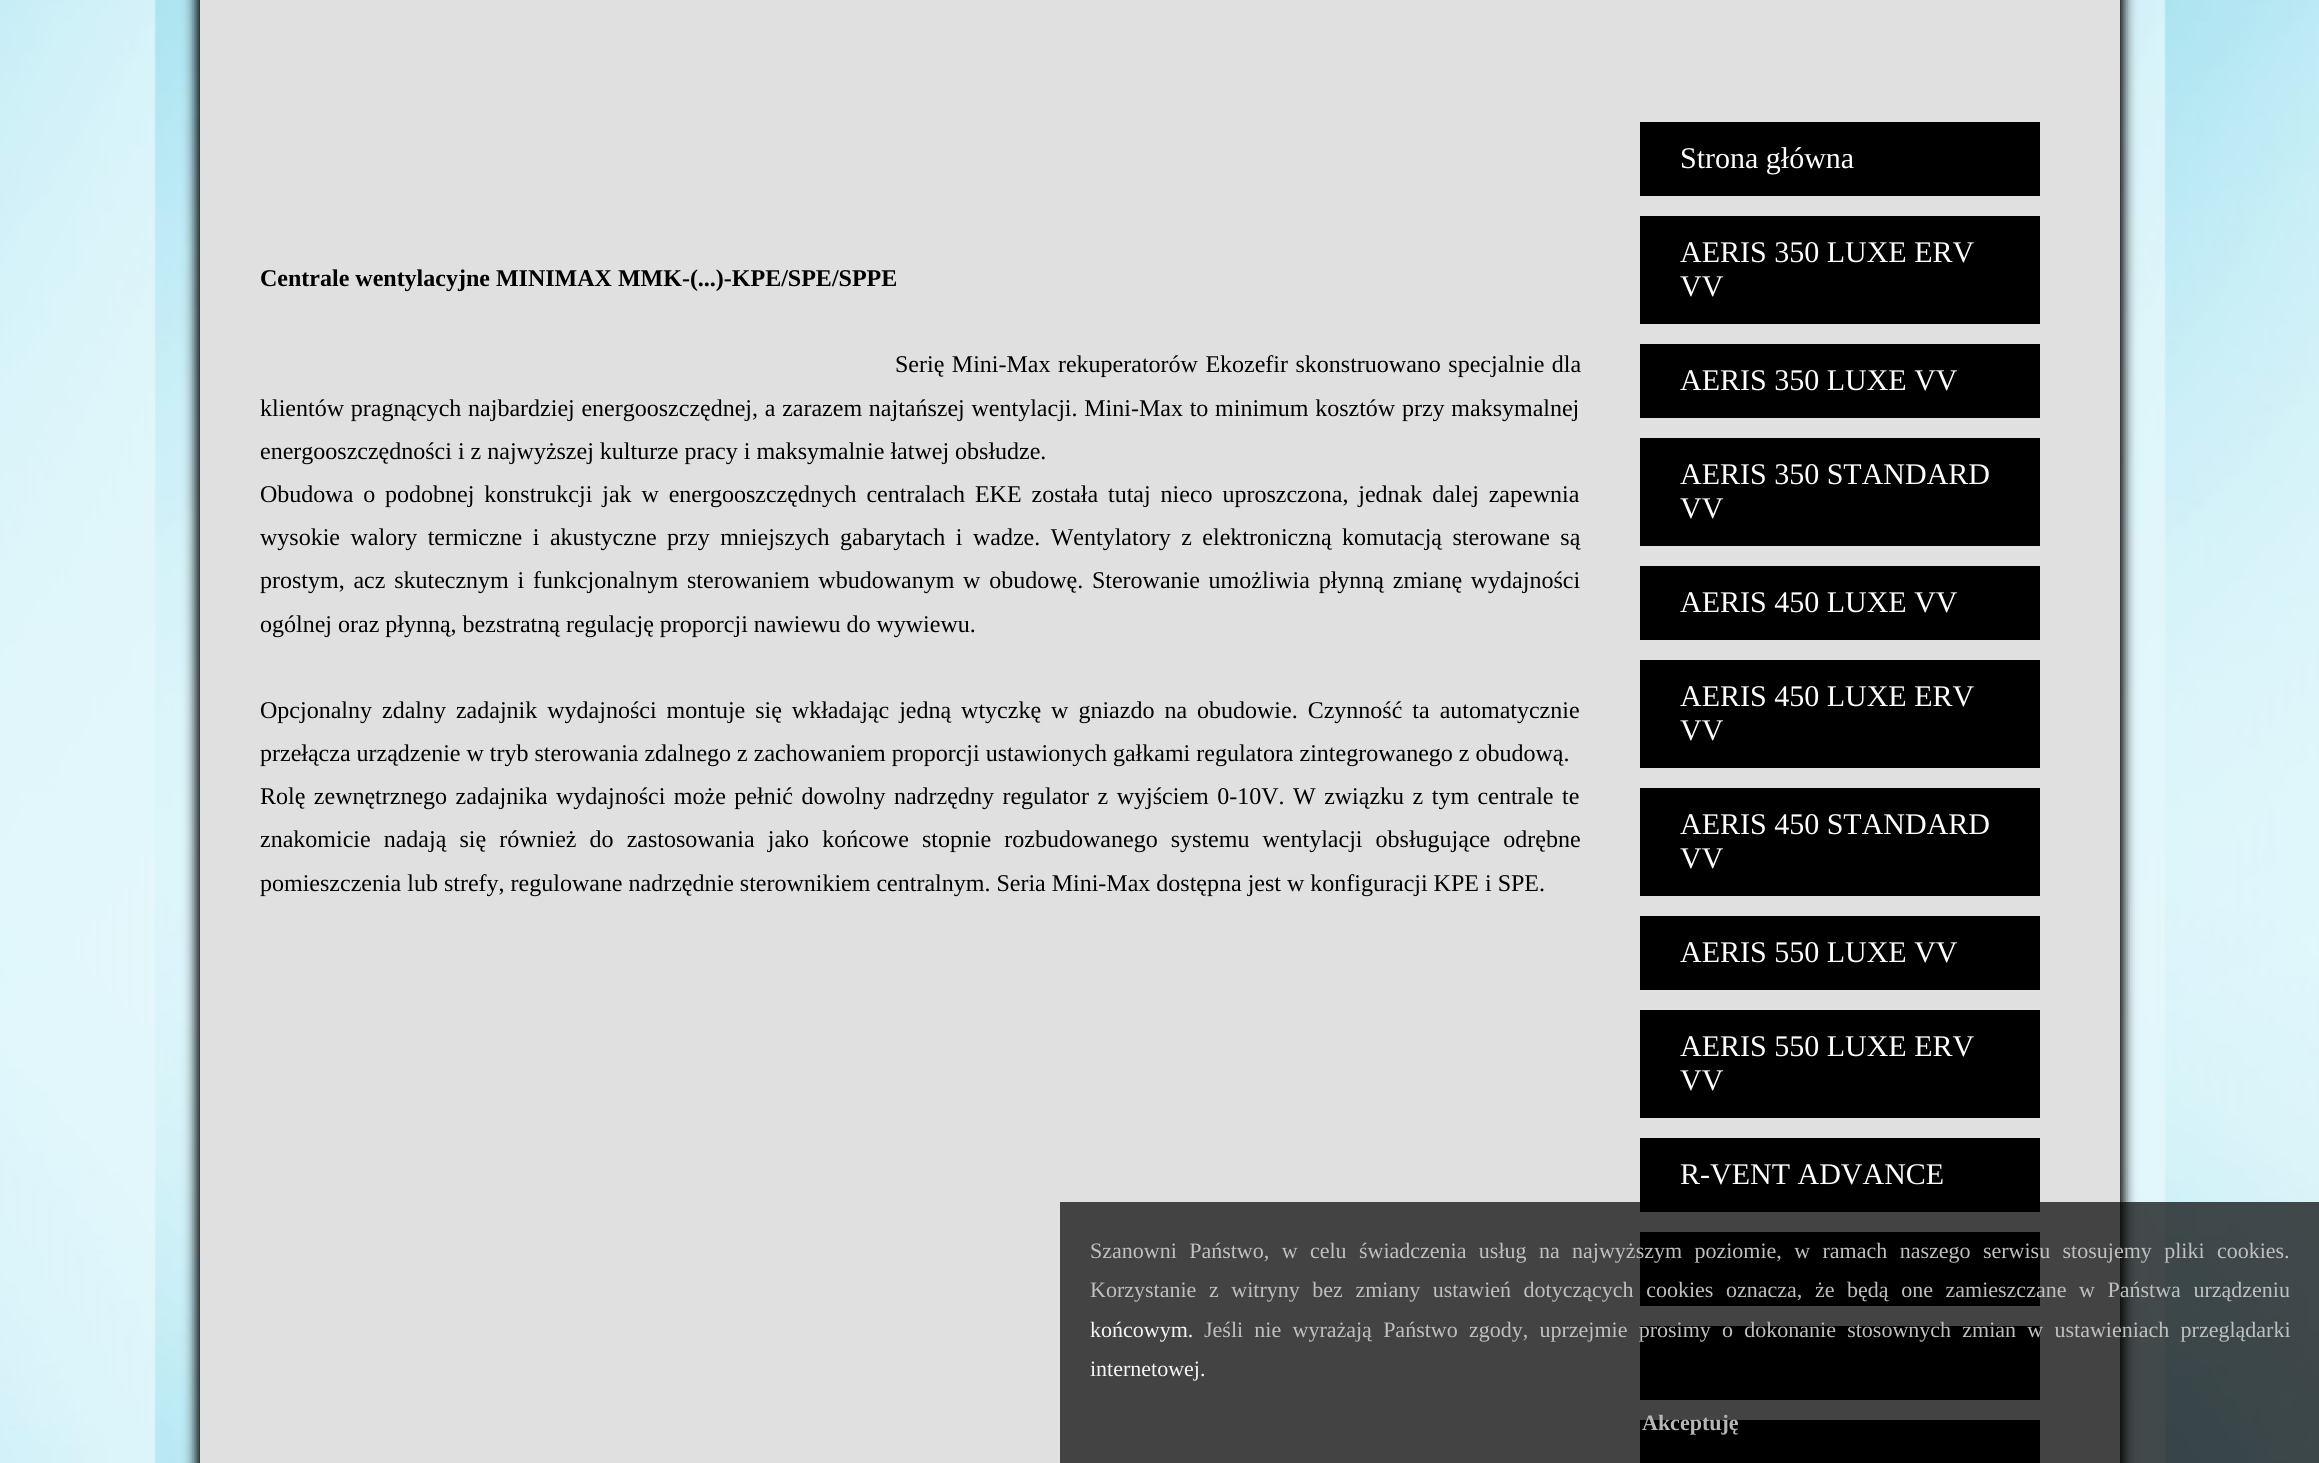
#include <cairo.h>
#include <math.h>
#include <stddef.h>


static void set_color(cairo_t *cr, unsigned color) {
    cairo_set_source_rgb(cr, (color >> 16) / 255.0, (color >> 8 & 255) / 255.0, (color & 255) / 255.0);
}

static void draw_text(cairo_t *cr, double x, double y, const char *s, const char *family, double size, int italic, int bold, unsigned color) {
    cairo_select_font_face(cr, family, italic ? CAIRO_FONT_SLANT_ITALIC : CAIRO_FONT_SLANT_NORMAL,
        bold ? CAIRO_FONT_WEIGHT_BOLD : CAIRO_FONT_WEIGHT_NORMAL);
    cairo_set_font_size(cr, size);
    set_color(cr, color);
    cairo_move_to(cr, x, y);
    cairo_show_text(cr, s);
}

static void draw_spaced(cairo_t *cr, double x, double y, const char *s, double letter, double word) {
    cairo_move_to(cr, x, y);
    while (*s) {
        char ch[5] = {0};
        int n = 0;
        do ch[n++] = *s++; while ((*s & 0xC0) == 0x80);
        cairo_show_text(cr, ch);
        cairo_rel_move_to(cr, letter + word * (*ch == ' '), 0);
    }
}

static void fill_rect(cairo_t *cr, double x, double y, double w, double h, unsigned color) {
    set_color(cr, color);
    cairo_rectangle(cr, x, y, w, h);
    cairo_fill(cr);
}

static void rounded_rect(cairo_t *cr, double x, double y, double w, double h, double r) {
    cairo_new_sub_path(cr);
    cairo_arc(cr, x + w - r, y + h - r, r, 0, M_PI / 2);
    cairo_arc(cr, x + r, y + h - r, r, M_PI / 2, M_PI);
    cairo_arc(cr, x + r, y + r, r, M_PI, 1.5 * M_PI);
    cairo_arc(cr, x + w - r, y + r, r, 1.5 * M_PI, 2 * M_PI);
    cairo_close_path(cr);
}

static void draw_shadow(cairo_t *cr, double x, double y, double w, double h, double r, double blur, double alpha) {
    cairo_push_group_with_content(cr, CAIRO_CONTENT_ALPHA);
    cairo_set_operator(cr, CAIRO_OPERATOR_SOURCE);
    for (int i = 15; i >= -15 && fmin(w, h) + blur * i / 3 > 0; i -= 2) {
        double e = blur * i / 6;
        cairo_set_source_rgba(cr, 0, 0, 0, alpha * erfc((i - 1) / 8.5) / 2);
        rounded_rect(cr, x - e, y - e, w + 2 * e, h + 2 * e, fmax(0, fmin(r + e + blur * .6, fmin(w, h) / 2 + e)));
        cairo_fill(cr);
    }
    cairo_pattern_t *soft = cairo_pop_group(cr);
    cairo_mask(cr, soft);
    cairo_pattern_destroy(soft);
}

static void draw_image(cairo_t *cr, const char *path, double x, double y, double w, double h) {
    cairo_surface_t *image = cairo_image_surface_create_from_png(path);
    cairo_save(cr);
    cairo_set_source_surface(cr, image, x, y);
    cairo_rectangle(cr, x, y, w, h);
    cairo_fill(cr);
    cairo_restore(cr);
    cairo_surface_destroy(image);
}

int main(void) {
    cairo_surface_t *surface = cairo_image_surface_create(CAIRO_FORMAT_RGB24, 2319, 1463);
    cairo_t *cr = cairo_create(surface);
    cairo_font_options_t *options = cairo_font_options_create();
    cairo_font_options_set_hint_metrics(options, CAIRO_HINT_METRICS_OFF);
    cairo_font_options_set_hint_style(options, CAIRO_HINT_STYLE_NONE);
    cairo_set_font_options(cr, options);
    cairo_set_miter_limit(cr, 4);
    set_color(cr, 0xFFFFFF);
    cairo_paint(cr);
    draw_image(cr, "assets/img1.png", 0, 0, 2319, 1463);
    set_color(cr, 0x000000);
    draw_shadow(cr, 198, -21, 1920, 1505, 0, 7, 1);
    draw_shadow(cr, 202, -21, 1920, 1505, 0, 7, 1);
    fill_rect(cr, 200, 0, 1920, 1463, 0xE0E0E0);
    draw_text(cr, 260, 286, "Centrale wentylacyjne MINIMAX MMK-(...)-KPE/SPE/SPPE", "Liberation Serif", 24, 0, 1, 0x000000);
    cairo_select_font_face(cr, "Liberation Serif", CAIRO_FONT_SLANT_NORMAL, CAIRO_FONT_WEIGHT_NORMAL);
    draw_spaced(cr, 895, 372, "Serię Mini-Max rekuperatorów Ekozefir skonstruowano specjalnie dla", 0, 1.5);
    draw_spaced(cr, 260, 416, "klientów pragnących najbardziej energooszczędnej, a zarazem najtańszej wentylacji. Mini-Max to minimum kosztów przy maksymalnej", 0, 0.75);
    draw_text(cr, 260, 459, "energooszczędności i z najwyższej kulturze pracy i maksymalnie łatwej obsłudze.", "Liberation Serif", 24, 0, 0, 0x000000);
    draw_spaced(cr, 260, 502, "Obudowa o podobnej konstrukcji jak w energooszczędnych centralach EKE została tutaj nieco uproszczona, jednak dalej zapewnia", 0, 3.9);
    draw_spaced(cr, 260, 545, "wysokie walory termiczne i akustyczne przy mniejszych gabarytach i wadze. Wentylatory z elektroniczną komutacją sterowane są", 0, 4.5);
    draw_spaced(cr, 260, 588, "prostym, acz skutecznym i funkcjonalnym sterowaniem wbudowanym w obudowę. Sterowanie umożliwia płynną zmianę wydajności", 0, 2.75);
    draw_text(cr, 260, 632, "ogólnej oraz płynną, bezstratną regulację proporcji nawiewu do wywiewu.", "Liberation Serif", 24, 0, 0, 0x000000);
    draw_spaced(cr, 260, 718, "Opcjonalny zdalny zadajnik wydajności montuje się wkładając jedną wtyczkę w gniazdo na obudowie. Czynność ta automatycznie", 0, 4);
    draw_text(cr, 260, 761, "przełącza urządzenie w tryb sterowania zdalnego z zachowaniem proporcji ustawionych gałkami regulatora zintegrowanego z obudową.", "Liberation Serif", 24, 0, 0, 0x000000);
    draw_spaced(cr, 260, 804, "Rolę zewnętrznego zadajnika wydajności może pełnić dowolny nadrzędny regulator z wyjściem 0-10V. W związku z tym centrale te", 0, 2.5);
    draw_spaced(cr, 260, 847, "znakomicie nadają się również do zastosowania jako końcowe stopnie rozbudowanego systemu wentylacji obsługujące odrębne", 0, 7.1);
    draw_text(cr, 260, 891, "pomieszczenia lub strefy, regulowane nadrzędnie sterownikiem centralnym. Seria Mini-Max dostępna jest w konfiguracji KPE i SPE.", "Liberation Serif", 24, 0, 0, 0x000000);
    fill_rect(cr, 1640, 122, 400, 74, 0x000000);
    draw_text(cr, 1680, 168, "Strona główna", "Liberation Serif", 30, 0, 0, 0xFFFFFF);
    fill_rect(cr, 1640, 216, 400, 108, 0x000000);
    draw_text(cr, 1680, 262, "AERIS 350 LUXE ERV", "Liberation Serif", 30, 0, 0, 0xFFFFFF);
    draw_text(cr, 1680, 296, "VV", "Liberation Serif", 30, 0, 0, 0xFFFFFF);
    fill_rect(cr, 1640, 344, 400, 74, 0x000000);
    draw_text(cr, 1680, 390, "AERIS 350 LUXE VV", "Liberation Serif", 30, 0, 0, 0xFFFFFF);
    fill_rect(cr, 1640, 438, 400, 108, 0x000000);
    draw_text(cr, 1680, 484, "AERIS 350 STANDARD", "Liberation Serif", 30, 0, 0, 0xFFFFFF);
    draw_text(cr, 1680, 518, "VV", "Liberation Serif", 30, 0, 0, 0xFFFFFF);
    fill_rect(cr, 1640, 566, 400, 74, 0x000000);
    draw_text(cr, 1680, 612, "AERIS 450 LUXE VV", "Liberation Serif", 30, 0, 0, 0xFFFFFF);
    fill_rect(cr, 1640, 660, 400, 108, 0x000000);
    draw_text(cr, 1680, 706, "AERIS 450 LUXE ERV", "Liberation Serif", 30, 0, 0, 0xFFFFFF);
    draw_text(cr, 1680, 740, "VV", "Liberation Serif", 30, 0, 0, 0xFFFFFF);
    fill_rect(cr, 1640, 788, 400, 108, 0x000000);
    draw_text(cr, 1680, 834, "AERIS 450 STANDARD", "Liberation Serif", 30, 0, 0, 0xFFFFFF);
    draw_text(cr, 1680, 868, "VV", "Liberation Serif", 30, 0, 0, 0xFFFFFF);
    fill_rect(cr, 1640, 916, 400, 74, 0x000000);
    draw_text(cr, 1680, 962, "AERIS 550 LUXE VV", "Liberation Serif", 30, 0, 0, 0xFFFFFF);
    fill_rect(cr, 1640, 1010, 400, 108, 0x000000);
    draw_text(cr, 1680, 1056, "AERIS 550 LUXE ERV", "Liberation Serif", 30, 0, 0, 0xFFFFFF);
    draw_text(cr, 1680, 1090, "VV", "Liberation Serif", 30, 0, 0, 0xFFFFFF);
    fill_rect(cr, 1640, 1138, 400, 74, 0x000000);
    draw_text(cr, 1680, 1184, "R-VENT ADVANCE", "Liberation Serif", 30, 0, 0, 0xFFFFFF);
    fill_rect(cr, 1640, 1232, 400, 74, 0x000000);
    fill_rect(cr, 1640, 1326, 400, 74, 0x000000);
    fill_rect(cr, 1640, 1420, 400, 43, 0x000000);
    cairo_set_source_rgba(cr, 0, 0, 0, 0.7);
    cairo_rectangle(cr, 1060, 1202, 1259, 261);
    cairo_fill(cr);
    cairo_set_font_size(cr, 22);
    set_color(cr, 0xC0C0C0);
    draw_spaced(cr, 1090, 1258, "Szanowni Państwo, w celu świadczenia usług na najwyższym poziomie, w ramach naszego serwisu stosujemy pliki cookies.", 0, 6.9);
    draw_spaced(cr, 1090, 1297, "Korzystanie z witryny bez zmiany ustawień dotyczących cookies oznacza, że będą one zamieszczane w Państwa urządzeniu", 0, 7.1);
    draw_text(cr, 1090, 1337, "końcowym.", "Liberation Serif", 22, 0, 0, 0xF6F6F6);
    set_color(cr, 0xC0C0C0);
    draw_spaced(cr, 1204, 1337, "Jeśli nie wyrażają Państwo zgody, uprzejmie prosimy o dokonanie stosownych zmian w ustawieniach przeglądarki", 0, 5.75);
    draw_text(cr, 1090, 1376, "internetowej.", "Liberation Serif", 22, 0, 0, 0xF6F6F6);
    draw_text(cr, 1642, 1430, "Akceptuję", "Liberation Serif", 22, 0, 1, 0xB5B5B5);
    cairo_surface_write_to_png(surface, "output.png");
    cairo_font_options_destroy(options);
    cairo_destroy(cr);
    cairo_surface_destroy(surface);
    return 0;
}
